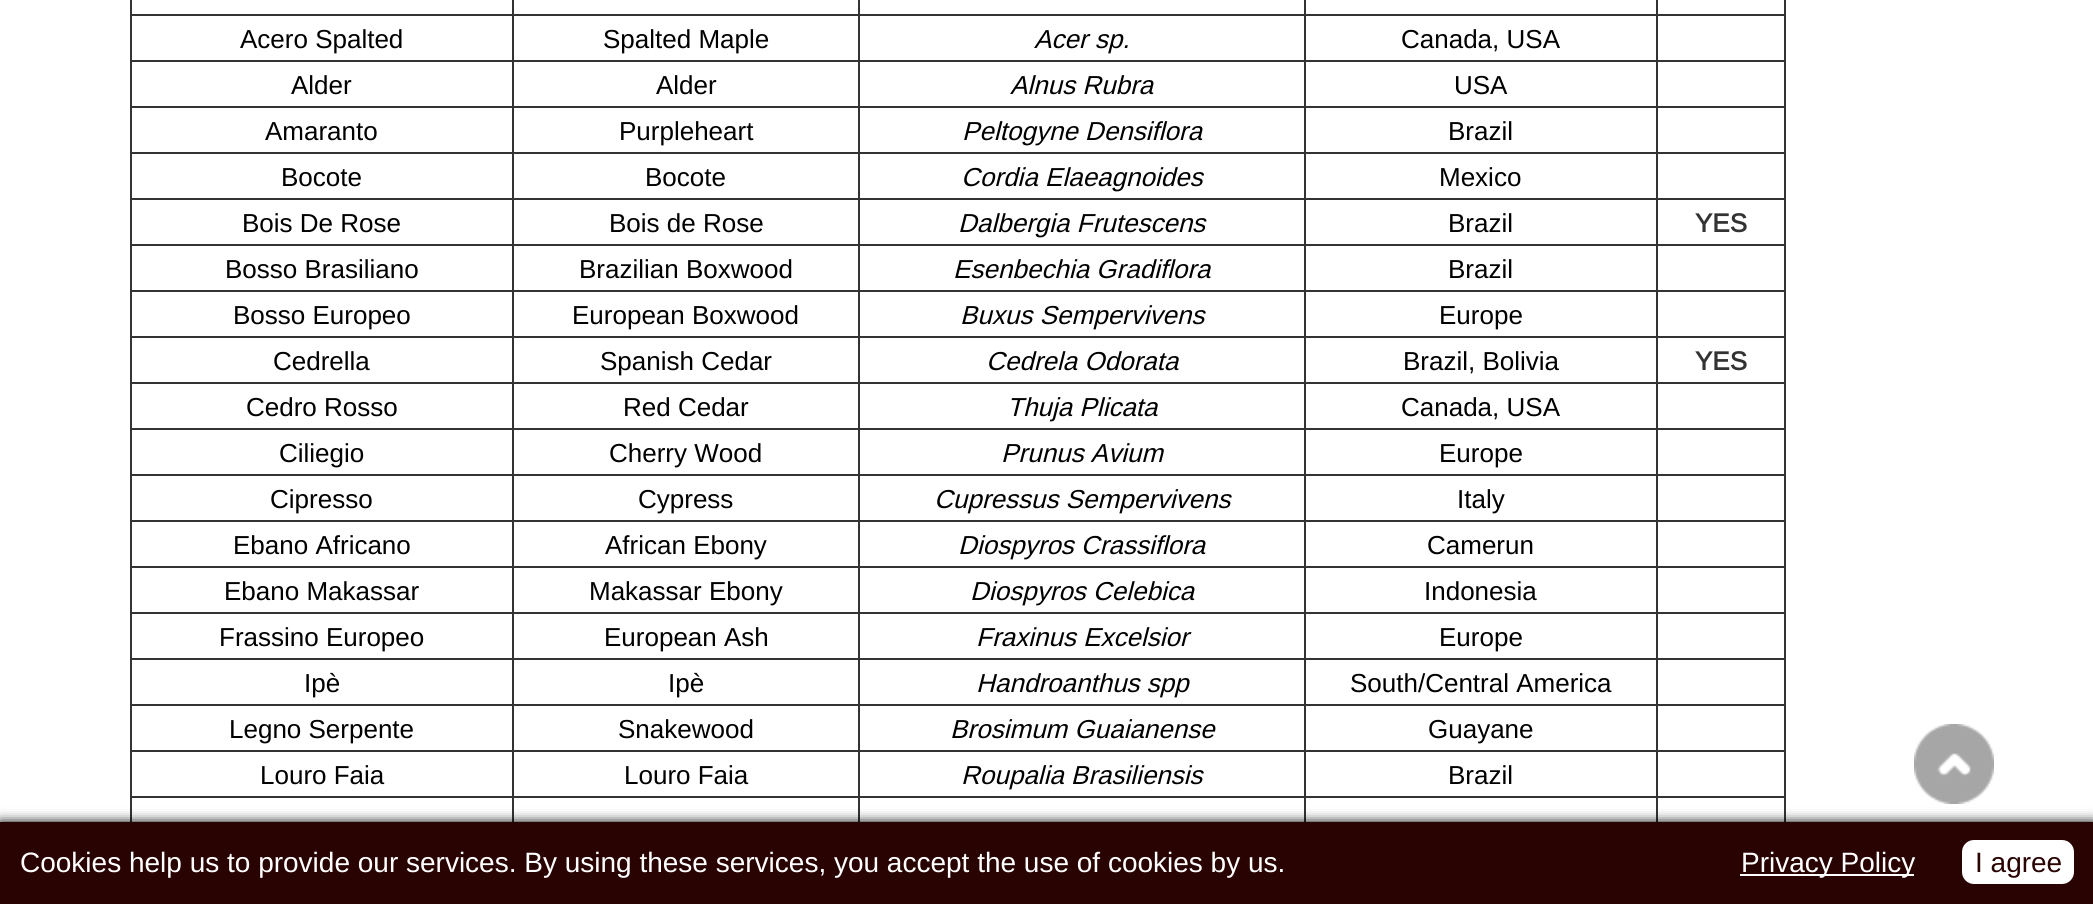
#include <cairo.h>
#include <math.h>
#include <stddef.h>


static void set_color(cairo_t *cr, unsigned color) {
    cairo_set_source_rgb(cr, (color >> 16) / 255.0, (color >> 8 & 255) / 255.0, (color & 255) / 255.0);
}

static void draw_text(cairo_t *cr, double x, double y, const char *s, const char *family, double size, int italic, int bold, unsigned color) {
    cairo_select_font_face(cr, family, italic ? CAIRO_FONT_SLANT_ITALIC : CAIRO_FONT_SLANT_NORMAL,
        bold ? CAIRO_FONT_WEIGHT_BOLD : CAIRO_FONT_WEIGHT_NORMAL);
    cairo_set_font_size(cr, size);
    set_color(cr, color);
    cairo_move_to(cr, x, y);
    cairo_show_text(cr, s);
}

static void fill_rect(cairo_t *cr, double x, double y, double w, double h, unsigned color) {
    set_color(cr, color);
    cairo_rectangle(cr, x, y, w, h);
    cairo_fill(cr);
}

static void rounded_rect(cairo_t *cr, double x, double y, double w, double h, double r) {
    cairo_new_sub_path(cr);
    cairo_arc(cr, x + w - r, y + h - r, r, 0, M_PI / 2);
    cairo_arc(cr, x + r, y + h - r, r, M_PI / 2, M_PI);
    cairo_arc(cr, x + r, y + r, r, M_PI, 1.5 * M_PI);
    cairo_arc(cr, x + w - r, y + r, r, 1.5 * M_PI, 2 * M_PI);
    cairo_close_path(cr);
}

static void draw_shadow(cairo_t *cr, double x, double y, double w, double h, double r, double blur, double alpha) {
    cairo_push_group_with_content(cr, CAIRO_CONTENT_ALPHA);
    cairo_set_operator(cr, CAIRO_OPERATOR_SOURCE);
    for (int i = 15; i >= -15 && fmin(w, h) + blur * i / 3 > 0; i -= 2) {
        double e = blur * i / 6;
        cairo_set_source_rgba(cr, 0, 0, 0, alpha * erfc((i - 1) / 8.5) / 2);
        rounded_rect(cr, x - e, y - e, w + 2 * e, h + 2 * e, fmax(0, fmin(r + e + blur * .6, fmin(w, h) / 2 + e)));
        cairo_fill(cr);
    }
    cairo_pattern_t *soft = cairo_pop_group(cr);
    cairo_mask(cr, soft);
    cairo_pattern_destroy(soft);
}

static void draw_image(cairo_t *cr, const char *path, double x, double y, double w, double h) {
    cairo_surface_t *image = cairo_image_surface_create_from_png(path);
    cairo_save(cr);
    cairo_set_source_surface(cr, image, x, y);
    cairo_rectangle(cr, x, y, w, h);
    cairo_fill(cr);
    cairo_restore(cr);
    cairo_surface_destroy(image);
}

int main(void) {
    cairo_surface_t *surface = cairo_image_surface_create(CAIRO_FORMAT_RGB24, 2093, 904);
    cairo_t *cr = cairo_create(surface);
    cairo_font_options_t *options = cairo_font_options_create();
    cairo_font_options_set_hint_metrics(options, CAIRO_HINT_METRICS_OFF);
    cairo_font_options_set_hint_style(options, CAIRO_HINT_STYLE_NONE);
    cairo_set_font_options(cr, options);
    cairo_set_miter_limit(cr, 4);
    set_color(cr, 0xFFFFFF);
    cairo_paint(cr);
    fill_rect(cr, 512, 796, 2, 26, 0x333333);
    fill_rect(cr, 130, 796, 2, 26, 0x333333);
    fill_rect(cr, 858, 796, 2, 26, 0x333333);
    fill_rect(cr, 1304, 796, 2, 26, 0x333333);
    fill_rect(cr, 1656, 796, 2, 26, 0x333333);
    fill_rect(cr, 1784, 0, 2, 822, 0x333333);
    fill_rect(cr, 1656, 796, 130, 2, 0x333333);
    fill_rect(cr, 1656, 750, 2, 48, 0x333333);
    fill_rect(cr, 1656, 750, 130, 2, 0x333333);
    fill_rect(cr, 1656, 704, 2, 48, 0x333333);
    fill_rect(cr, 1656, 704, 130, 2, 0x333333);
    fill_rect(cr, 1656, 658, 2, 48, 0x333333);
    fill_rect(cr, 1656, 658, 130, 2, 0x333333);
    fill_rect(cr, 1656, 612, 2, 48, 0x333333);
    fill_rect(cr, 1656, 612, 130, 2, 0x333333);
    fill_rect(cr, 1656, 566, 2, 48, 0x333333);
    fill_rect(cr, 1656, 566, 130, 2, 0x333333);
    fill_rect(cr, 1656, 520, 2, 48, 0x333333);
    fill_rect(cr, 1656, 520, 130, 2, 0x333333);
    fill_rect(cr, 1656, 474, 2, 48, 0x333333);
    fill_rect(cr, 1656, 474, 130, 2, 0x333333);
    fill_rect(cr, 1656, 428, 2, 48, 0x333333);
    fill_rect(cr, 1656, 428, 130, 2, 0x333333);
    fill_rect(cr, 1656, 382, 2, 48, 0x333333);
    fill_rect(cr, 1656, 382, 130, 2, 0x333333);
    fill_rect(cr, 1656, 336, 2, 48, 0x333333);
    fill_rect(cr, 1656, 336, 130, 2, 0x333333);
    fill_rect(cr, 1656, 290, 2, 48, 0x333333);
    fill_rect(cr, 1656, 290, 130, 2, 0x333333);
    fill_rect(cr, 1656, 244, 2, 48, 0x333333);
    fill_rect(cr, 1656, 244, 130, 2, 0x333333);
    fill_rect(cr, 1656, 198, 2, 48, 0x333333);
    fill_rect(cr, 1656, 198, 130, 2, 0x333333);
    fill_rect(cr, 1656, 152, 2, 48, 0x333333);
    fill_rect(cr, 1656, 152, 130, 2, 0x333333);
    fill_rect(cr, 1656, 106, 2, 48, 0x333333);
    fill_rect(cr, 1656, 106, 130, 2, 0x333333);
    fill_rect(cr, 1656, 60, 2, 48, 0x333333);
    fill_rect(cr, 1656, 60, 130, 2, 0x333333);
    fill_rect(cr, 1656, 14, 2, 48, 0x333333);
    fill_rect(cr, 1656, 14, 130, 2, 0x333333);
    fill_rect(cr, 1656, 0, 2, 16, 0x333333);
    fill_rect(cr, 1304, 796, 354, 2, 0x333333);
    fill_rect(cr, 1304, 750, 2, 48, 0x333333);
    fill_rect(cr, 1304, 750, 354, 2, 0x333333);
    fill_rect(cr, 1304, 704, 2, 48, 0x333333);
    fill_rect(cr, 1304, 704, 354, 2, 0x333333);
    fill_rect(cr, 1304, 658, 2, 48, 0x333333);
    fill_rect(cr, 1304, 658, 354, 2, 0x333333);
    fill_rect(cr, 1304, 612, 2, 48, 0x333333);
    fill_rect(cr, 1304, 612, 354, 2, 0x333333);
    fill_rect(cr, 1304, 566, 2, 48, 0x333333);
    fill_rect(cr, 1304, 566, 354, 2, 0x333333);
    fill_rect(cr, 1304, 520, 2, 48, 0x333333);
    fill_rect(cr, 1304, 520, 354, 2, 0x333333);
    fill_rect(cr, 1304, 474, 2, 48, 0x333333);
    fill_rect(cr, 1304, 474, 354, 2, 0x333333);
    fill_rect(cr, 1304, 428, 2, 48, 0x333333);
    fill_rect(cr, 1304, 428, 354, 2, 0x333333);
    fill_rect(cr, 1304, 382, 2, 48, 0x333333);
    fill_rect(cr, 1304, 382, 354, 2, 0x333333);
    fill_rect(cr, 1304, 336, 2, 48, 0x333333);
    fill_rect(cr, 1304, 336, 354, 2, 0x333333);
    fill_rect(cr, 1304, 290, 2, 48, 0x333333);
    fill_rect(cr, 1304, 290, 354, 2, 0x333333);
    fill_rect(cr, 1304, 244, 2, 48, 0x333333);
    fill_rect(cr, 1304, 244, 354, 2, 0x333333);
    fill_rect(cr, 1304, 198, 2, 48, 0x333333);
    fill_rect(cr, 1304, 198, 354, 2, 0x333333);
    fill_rect(cr, 1304, 152, 2, 48, 0x333333);
    fill_rect(cr, 1304, 152, 354, 2, 0x333333);
    fill_rect(cr, 1304, 106, 2, 48, 0x333333);
    fill_rect(cr, 1304, 106, 354, 2, 0x333333);
    fill_rect(cr, 1304, 60, 2, 48, 0x333333);
    fill_rect(cr, 1304, 60, 354, 2, 0x333333);
    fill_rect(cr, 1304, 14, 2, 48, 0x333333);
    fill_rect(cr, 1304, 14, 354, 2, 0x333333);
    fill_rect(cr, 1304, 0, 2, 16, 0x333333);
    fill_rect(cr, 858, 796, 448, 2, 0x333333);
    fill_rect(cr, 858, 750, 2, 48, 0x333333);
    fill_rect(cr, 858, 750, 448, 2, 0x333333);
    fill_rect(cr, 858, 704, 2, 48, 0x333333);
    fill_rect(cr, 858, 704, 448, 2, 0x333333);
    fill_rect(cr, 858, 658, 2, 48, 0x333333);
    fill_rect(cr, 858, 658, 448, 2, 0x333333);
    fill_rect(cr, 858, 612, 2, 48, 0x333333);
    fill_rect(cr, 858, 612, 448, 2, 0x333333);
    fill_rect(cr, 858, 566, 2, 48, 0x333333);
    fill_rect(cr, 858, 566, 448, 2, 0x333333);
    fill_rect(cr, 858, 520, 2, 48, 0x333333);
    fill_rect(cr, 858, 520, 448, 2, 0x333333);
    fill_rect(cr, 858, 474, 2, 48, 0x333333);
    fill_rect(cr, 858, 474, 448, 2, 0x333333);
    fill_rect(cr, 858, 428, 2, 48, 0x333333);
    fill_rect(cr, 858, 428, 448, 2, 0x333333);
    fill_rect(cr, 858, 382, 2, 48, 0x333333);
    fill_rect(cr, 858, 382, 448, 2, 0x333333);
    fill_rect(cr, 858, 336, 2, 48, 0x333333);
    fill_rect(cr, 858, 336, 448, 2, 0x333333);
    fill_rect(cr, 858, 290, 2, 48, 0x333333);
    fill_rect(cr, 858, 290, 448, 2, 0x333333);
    fill_rect(cr, 858, 244, 2, 48, 0x333333);
    fill_rect(cr, 858, 244, 448, 2, 0x333333);
    fill_rect(cr, 858, 198, 2, 48, 0x333333);
    fill_rect(cr, 858, 198, 448, 2, 0x333333);
    fill_rect(cr, 858, 152, 2, 48, 0x333333);
    fill_rect(cr, 858, 152, 448, 2, 0x333333);
    fill_rect(cr, 858, 106, 2, 48, 0x333333);
    fill_rect(cr, 858, 106, 448, 2, 0x333333);
    fill_rect(cr, 858, 60, 2, 48, 0x333333);
    fill_rect(cr, 858, 60, 448, 2, 0x333333);
    fill_rect(cr, 858, 14, 2, 48, 0x333333);
    fill_rect(cr, 858, 14, 448, 2, 0x333333);
    fill_rect(cr, 858, 0, 2, 16, 0x333333);
    fill_rect(cr, 512, 796, 348, 2, 0x333333);
    fill_rect(cr, 512, 750, 2, 48, 0x333333);
    fill_rect(cr, 512, 750, 348, 2, 0x333333);
    fill_rect(cr, 512, 704, 2, 48, 0x333333);
    fill_rect(cr, 512, 704, 348, 2, 0x333333);
    fill_rect(cr, 512, 658, 2, 48, 0x333333);
    fill_rect(cr, 512, 658, 348, 2, 0x333333);
    fill_rect(cr, 512, 612, 2, 48, 0x333333);
    fill_rect(cr, 512, 612, 348, 2, 0x333333);
    fill_rect(cr, 512, 566, 2, 48, 0x333333);
    fill_rect(cr, 512, 566, 348, 2, 0x333333);
    fill_rect(cr, 512, 520, 2, 48, 0x333333);
    fill_rect(cr, 512, 520, 348, 2, 0x333333);
    fill_rect(cr, 512, 474, 2, 48, 0x333333);
    fill_rect(cr, 512, 474, 348, 2, 0x333333);
    fill_rect(cr, 512, 428, 2, 48, 0x333333);
    fill_rect(cr, 512, 428, 348, 2, 0x333333);
    fill_rect(cr, 512, 382, 2, 48, 0x333333);
    fill_rect(cr, 512, 382, 348, 2, 0x333333);
    fill_rect(cr, 512, 336, 2, 48, 0x333333);
    fill_rect(cr, 512, 336, 348, 2, 0x333333);
    fill_rect(cr, 512, 290, 2, 48, 0x333333);
    fill_rect(cr, 512, 290, 348, 2, 0x333333);
    fill_rect(cr, 512, 244, 2, 48, 0x333333);
    fill_rect(cr, 512, 244, 348, 2, 0x333333);
    fill_rect(cr, 512, 198, 2, 48, 0x333333);
    fill_rect(cr, 512, 198, 348, 2, 0x333333);
    fill_rect(cr, 512, 152, 2, 48, 0x333333);
    fill_rect(cr, 512, 152, 348, 2, 0x333333);
    fill_rect(cr, 512, 106, 2, 48, 0x333333);
    fill_rect(cr, 512, 106, 348, 2, 0x333333);
    fill_rect(cr, 512, 60, 2, 48, 0x333333);
    fill_rect(cr, 512, 60, 348, 2, 0x333333);
    fill_rect(cr, 512, 14, 2, 48, 0x333333);
    fill_rect(cr, 512, 14, 348, 2, 0x333333);
    fill_rect(cr, 512, 0, 2, 16, 0x333333);
    fill_rect(cr, 130, 796, 384, 2, 0x333333);
    fill_rect(cr, 130, 750, 2, 48, 0x333333);
    fill_rect(cr, 130, 750, 384, 2, 0x333333);
    fill_rect(cr, 130, 704, 2, 48, 0x333333);
    fill_rect(cr, 130, 704, 384, 2, 0x333333);
    fill_rect(cr, 130, 658, 2, 48, 0x333333);
    fill_rect(cr, 130, 658, 384, 2, 0x333333);
    fill_rect(cr, 130, 612, 2, 48, 0x333333);
    fill_rect(cr, 130, 612, 384, 2, 0x333333);
    fill_rect(cr, 130, 566, 2, 48, 0x333333);
    fill_rect(cr, 130, 566, 384, 2, 0x333333);
    fill_rect(cr, 130, 520, 2, 48, 0x333333);
    fill_rect(cr, 130, 520, 384, 2, 0x333333);
    fill_rect(cr, 130, 474, 2, 48, 0x333333);
    fill_rect(cr, 130, 474, 384, 2, 0x333333);
    fill_rect(cr, 130, 428, 2, 48, 0x333333);
    fill_rect(cr, 130, 428, 384, 2, 0x333333);
    fill_rect(cr, 130, 382, 2, 48, 0x333333);
    fill_rect(cr, 130, 382, 384, 2, 0x333333);
    fill_rect(cr, 130, 336, 2, 48, 0x333333);
    fill_rect(cr, 130, 336, 384, 2, 0x333333);
    fill_rect(cr, 130, 290, 2, 48, 0x333333);
    fill_rect(cr, 130, 290, 384, 2, 0x333333);
    fill_rect(cr, 130, 244, 2, 48, 0x333333);
    fill_rect(cr, 130, 244, 384, 2, 0x333333);
    fill_rect(cr, 130, 198, 2, 48, 0x333333);
    fill_rect(cr, 130, 198, 384, 2, 0x333333);
    fill_rect(cr, 130, 152, 2, 48, 0x333333);
    fill_rect(cr, 130, 152, 384, 2, 0x333333);
    fill_rect(cr, 130, 106, 2, 48, 0x333333);
    fill_rect(cr, 130, 106, 384, 2, 0x333333);
    fill_rect(cr, 130, 60, 2, 48, 0x333333);
    fill_rect(cr, 130, 60, 384, 2, 0x333333);
    fill_rect(cr, 130, 14, 2, 48, 0x333333);
    fill_rect(cr, 130, 14, 384, 2, 0x333333);
    fill_rect(cr, 130, 0, 2, 16, 0x333333);
    draw_text(cr, 240, 48, "Acero Spalted", "Arimo", 26, 0, 0, 0x000000);
    draw_text(cr, 603, 48, "Spalted Maple", "Arimo", 26, 0, 0, 0x000000);
    draw_text(cr, 1034, 48, "Acer sp.", "Arimo", 26, 1, 0, 0x000000);
    draw_text(cr, 1401, 48, "Canada, USA", "Arimo", 26, 0, 0, 0x000000);
    draw_text(cr, 291, 94, "Alder", "Arimo", 26, 0, 0, 0x000000);
    draw_text(cr, 656, 94, "Alder", "Arimo", 26, 0, 0, 0x000000);
    draw_text(cr, 1010, 94, "Alnus Rubra", "Arimo", 26, 1, 0, 0x000000);
    draw_text(cr, 1454, 94, "USA", "Arimo", 26, 0, 0, 0x000000);
    draw_text(cr, 265, 140, "Amaranto", "Arimo", 26, 0, 0, 0x000000);
    draw_text(cr, 619, 140, "Purpleheart", "Arimo", 26, 0, 0, 0x000000);
    draw_text(cr, 962, 140, "Peltogyne Densiflora", "Arimo", 26, 1, 0, 0x000000);
    draw_text(cr, 1448, 140, "Brazil", "Arimo", 26, 0, 0, 0x000000);
    draw_text(cr, 281, 186, "Bocote", "Arimo", 26, 0, 0, 0x000000);
    draw_text(cr, 645, 186, "Bocote", "Arimo", 26, 0, 0, 0x000000);
    draw_text(cr, 961, 186, "Cordia Elaeagnoides", "Arimo", 26, 1, 0, 0x000000);
    draw_text(cr, 1439, 186, "Mexico", "Arimo", 26, 0, 0, 0x000000);
    draw_text(cr, 242, 232, "Bois De Rose", "Arimo", 26, 0, 0, 0x000000);
    draw_text(cr, 609, 232, "Bois de Rose", "Arimo", 26, 0, 0, 0x000000);
    draw_text(cr, 958, 232, "Dalbergia Frutescens", "Arimo", 26, 1, 0, 0x000000);
    draw_text(cr, 1448, 232, "Brazil", "Arimo", 26, 0, 0, 0x000000);
    draw_text(cr, 1695, 232, "YES", "Arimo", 26, 0, 1, 0x333333);
    draw_text(cr, 225, 278, "Bosso Brasiliano", "Arimo", 26, 0, 0, 0x000000);
    draw_text(cr, 579, 278, "Brazilian Boxwood", "Arimo", 26, 0, 0, 0x000000);
    draw_text(cr, 953, 278, "Esenbechia Gradiflora", "Arimo", 26, 1, 0, 0x000000);
    draw_text(cr, 1448, 278, "Brazil", "Arimo", 26, 0, 0, 0x000000);
    draw_text(cr, 233, 324, "Bosso Europeo", "Arimo", 26, 0, 0, 0x000000);
    draw_text(cr, 572, 324, "European Boxwood", "Arimo", 26, 0, 0, 0x000000);
    draw_text(cr, 960, 324, "Buxus Sempervivens", "Arimo", 26, 1, 0, 0x000000);
    draw_text(cr, 1439, 324, "Europe", "Arimo", 26, 0, 0, 0x000000);
    draw_text(cr, 273, 370, "Cedrella", "Arimo", 26, 0, 0, 0x000000);
    draw_text(cr, 600, 370, "Spanish Cedar", "Arimo", 26, 0, 0, 0x000000);
    draw_text(cr, 986, 370, "Cedrela Odorata", "Arimo", 26, 1, 0, 0x000000);
    draw_text(cr, 1403, 370, "Brazil, Bolivia", "Arimo", 26, 0, 0, 0x000000);
    draw_text(cr, 1695, 370, "YES", "Arimo", 26, 0, 1, 0x333333);
    draw_text(cr, 246, 416, "Cedro Rosso", "Arimo", 26, 0, 0, 0x000000);
    draw_text(cr, 623, 416, "Red Cedar", "Arimo", 26, 0, 0, 0x000000);
    draw_text(cr, 1007, 416, "Thuja Plicata", "Arimo", 26, 1, 0, 0x000000);
    draw_text(cr, 1401, 416, "Canada, USA", "Arimo", 26, 0, 0, 0x000000);
    draw_text(cr, 279, 462, "Ciliegio", "Arimo", 26, 0, 0, 0x000000);
    draw_text(cr, 609, 462, "Cherry Wood", "Arimo", 26, 0, 0, 0x000000);
    draw_text(cr, 1001, 462, "Prunus Avium", "Arimo", 26, 1, 0, 0x000000);
    draw_text(cr, 1439, 462, "Europe", "Arimo", 26, 0, 0, 0x000000);
    draw_text(cr, 270, 508, "Cipresso", "Arimo", 26, 0, 0, 0x000000);
    draw_text(cr, 638, 508, "Cypress", "Arimo", 26, 0, 0, 0x000000);
    draw_text(cr, 934, 508, "Cupressus Sempervivens", "Arimo", 26, 1, 0, 0x000000);
    draw_text(cr, 1457, 508, "Italy", "Arimo", 26, 0, 0, 0x000000);
    draw_text(cr, 233, 554, "Ebano Africano", "Arimo", 26, 0, 0, 0x000000);
    draw_text(cr, 605, 554, "African Ebony", "Arimo", 26, 0, 0, 0x000000);
    draw_text(cr, 958, 554, "Diospyros Crassiflora", "Arimo", 26, 1, 0, 0x000000);
    draw_text(cr, 1427, 554, "Camerun", "Arimo", 26, 0, 0, 0x000000);
    draw_text(cr, 224, 600, "Ebano Makassar", "Arimo", 26, 0, 0, 0x000000);
    draw_text(cr, 589, 600, "Makassar Ebony", "Arimo", 26, 0, 0, 0x000000);
    draw_text(cr, 970, 600, "Diospyros Celebica", "Arimo", 26, 1, 0, 0x000000);
    draw_text(cr, 1424, 600, "Indonesia", "Arimo", 26, 0, 0, 0x000000);
    draw_text(cr, 219, 646, "Frassino Europeo", "Arimo", 26, 0, 0, 0x000000);
    draw_text(cr, 604, 646, "European Ash", "Arimo", 26, 0, 0, 0x000000);
    draw_text(cr, 976, 646, "Fraxinus Excelsior", "Arimo", 26, 1, 0, 0x000000);
    draw_text(cr, 1439, 646, "Europe", "Arimo", 26, 0, 0, 0x000000);
    draw_text(cr, 304, 692, "Ipè", "Arimo", 26, 0, 0, 0x000000);
    draw_text(cr, 668, 692, "Ipè", "Arimo", 26, 0, 0, 0x000000);
    draw_text(cr, 976, 692, "Handroanthus spp", "Arimo", 26, 1, 0, 0x000000);
    draw_text(cr, 1350, 692, "South/Central America", "Arimo", 26, 0, 0, 0x000000);
    draw_text(cr, 229, 738, "Legno Serpente", "Arimo", 26, 0, 0, 0x000000);
    draw_text(cr, 618, 738, "Snakewood", "Arimo", 26, 0, 0, 0x000000);
    draw_text(cr, 950, 738, "Brosimum Guaianense", "Arimo", 26, 1, 0, 0x000000);
    draw_text(cr, 1428, 738, "Guayane", "Arimo", 26, 0, 0, 0x000000);
    draw_text(cr, 260, 784, "Louro Faia", "Arimo", 26, 0, 0, 0x000000);
    draw_text(cr, 624, 784, "Louro Faia", "Arimo", 26, 0, 0, 0x000000);
    draw_text(cr, 961, 784, "Roupalia Brasiliensis", "Arimo", 26, 1, 0, 0x000000);
    draw_text(cr, 1448, 784, "Brazil", "Arimo", 26, 0, 0, 0x000000);
    draw_image(cr, "assets/img1.png", 1914, 724, 80, 80);
    set_color(cr, 0x000000);
    draw_shadow(cr, 0, 822, 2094, 82, 0, 6, 1);
    fill_rect(cr, 0, 822, 2093, 82, 0x280302);
    draw_text(cr, 20, 872, "Cookies help us to provide our services. By using these services, you accept the use of cookies by us.", "Arimo", 28, 0, 0, 0xFFFFFF);
    fill_rect(cr, 1740, 874, 174, 2, 0xFFFFFF);
    draw_text(cr, 1741, 872, "Privacy Policy", "Arimo", 28, 0, 0, 0xFFFFFF);
    rounded_rect(cr, 1962, 840, 112, 44, 12);
    cairo_fill(cr);
    draw_text(cr, 1975, 872, "I agree", "Liberation Sans", 28, 0, 0, 0x280302);
    cairo_surface_write_to_png(surface, "output.png");
    cairo_font_options_destroy(options);
    cairo_destroy(cr);
    cairo_surface_destroy(surface);
    return 0;
}
